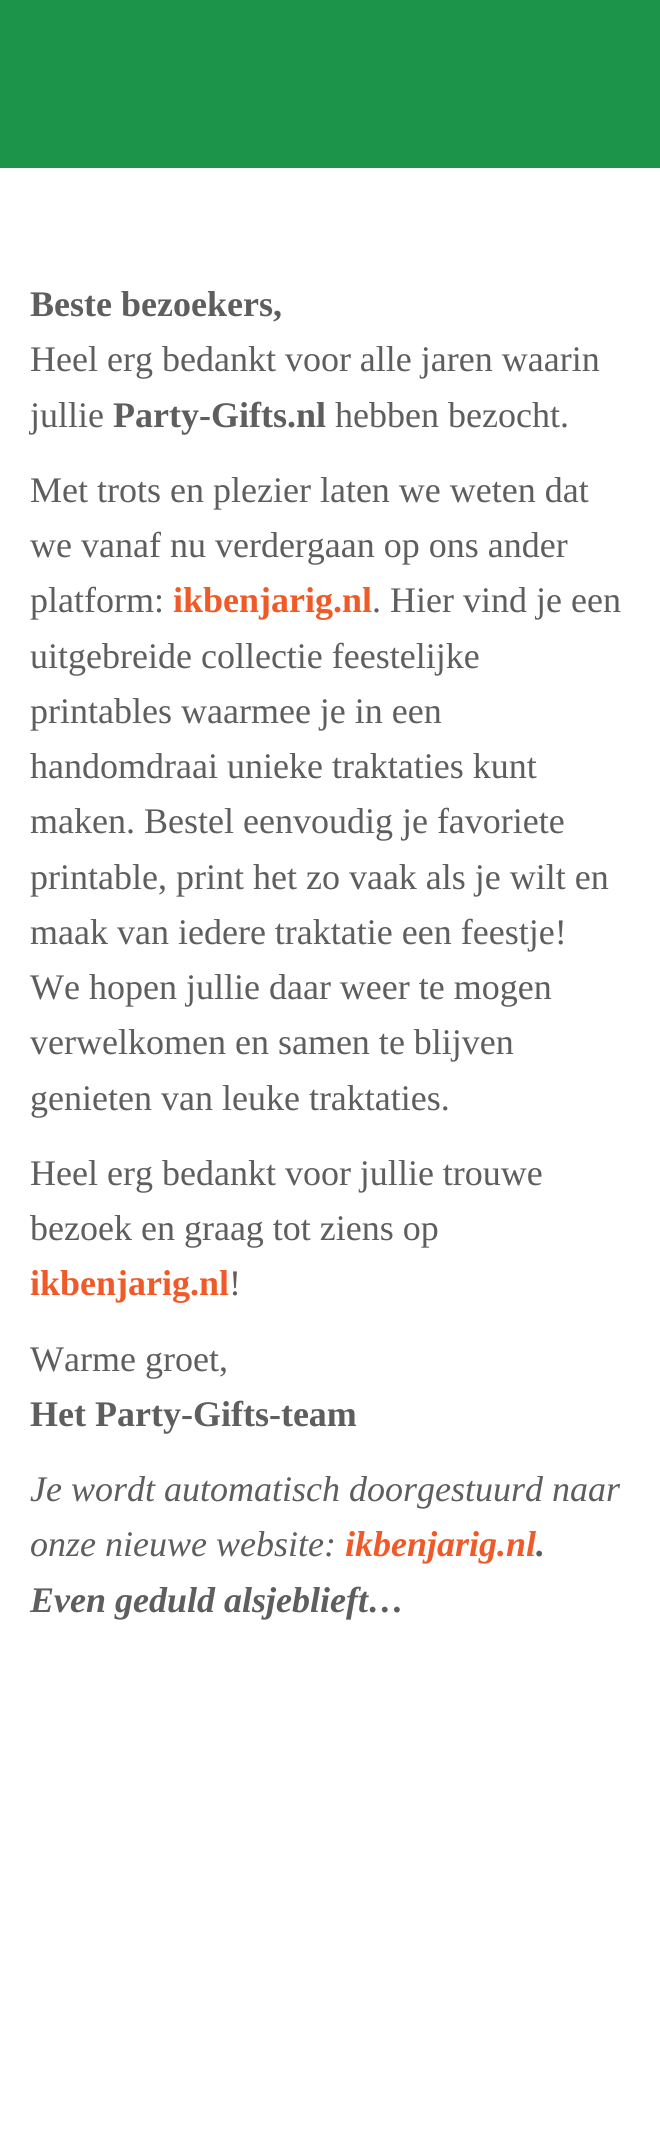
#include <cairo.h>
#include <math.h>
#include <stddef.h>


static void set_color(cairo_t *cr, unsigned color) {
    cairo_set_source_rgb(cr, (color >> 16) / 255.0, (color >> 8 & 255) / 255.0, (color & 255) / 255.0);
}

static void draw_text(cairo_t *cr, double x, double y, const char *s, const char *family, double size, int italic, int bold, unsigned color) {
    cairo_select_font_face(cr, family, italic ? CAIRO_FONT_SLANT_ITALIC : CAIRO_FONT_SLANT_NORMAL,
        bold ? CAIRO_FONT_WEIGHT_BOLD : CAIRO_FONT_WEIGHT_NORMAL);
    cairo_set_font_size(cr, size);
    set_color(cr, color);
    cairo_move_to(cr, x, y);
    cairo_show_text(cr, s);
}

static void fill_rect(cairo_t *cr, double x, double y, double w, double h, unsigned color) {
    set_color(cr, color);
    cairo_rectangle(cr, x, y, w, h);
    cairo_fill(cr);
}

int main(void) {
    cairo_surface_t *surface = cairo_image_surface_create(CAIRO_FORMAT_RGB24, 660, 2144);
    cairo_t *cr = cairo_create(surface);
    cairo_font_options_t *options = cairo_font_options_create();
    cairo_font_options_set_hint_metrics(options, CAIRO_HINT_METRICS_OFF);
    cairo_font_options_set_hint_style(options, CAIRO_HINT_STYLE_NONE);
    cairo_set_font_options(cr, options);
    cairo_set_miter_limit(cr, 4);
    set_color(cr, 0xFFFFFF);
    cairo_paint(cr);
    fill_rect(cr, 0, 0, 660, 168, 0x1C954B);
    draw_text(cr, 30, 316, "Beste bezoekers,", "Liberation Serif", 36, 0, 1, 0x5E5E5E);
    draw_text(cr, 30, 371, "Heel erg bedankt voor alle jaren waarin", "Liberation Serif", 36, 0, 0, 0x5E5E5E);
    draw_text(cr, 30, 427, "jullie", "Liberation Serif", 36, 0, 0, 0x5E5E5E);
    draw_text(cr, 113, 427, "Party-Gifts.nl", "Liberation Serif", 36, 0, 1, 0x5E5E5E);
    draw_text(cr, 335, 427, "hebben bezocht.", "Liberation Serif", 36, 0, 0, 0x5E5E5E);
    draw_text(cr, 30, 502, "Met trots en plezier laten we weten dat", "Liberation Serif", 36, 0, 0, 0x5E5E5E);
    draw_text(cr, 30, 557, "we vanaf nu verdergaan op ons ander", "Liberation Serif", 36, 0, 0, 0x5E5E5E);
    draw_text(cr, 30, 612, "platform:", "Liberation Serif", 36, 0, 0, 0x5E5E5E);
    draw_text(cr, 173, 612, "ikbenjarig.nl", "Liberation Serif", 36, 0, 1, 0xF05A28);
    draw_text(cr, 372, 612, ". Hier vind je een", "Liberation Serif", 36, 0, 0, 0x5E5E5E);
    draw_text(cr, 30, 668, "uitgebreide collectie feestelijke", "Liberation Serif", 36, 0, 0, 0x5E5E5E);
    draw_text(cr, 30, 723, "printables waarmee je in een", "Liberation Serif", 36, 0, 0, 0x5E5E5E);
    draw_text(cr, 30, 778, "handomdraai unieke traktaties kunt", "Liberation Serif", 36, 0, 0, 0x5E5E5E);
    draw_text(cr, 30, 833, "maken. Bestel eenvoudig je favoriete", "Liberation Serif", 36, 0, 0, 0x5E5E5E);
    draw_text(cr, 30, 889, "printable, print het zo vaak als je wilt en", "Liberation Serif", 36, 0, 0, 0x5E5E5E);
    draw_text(cr, 30, 944, "maak van iedere traktatie een feestje!", "Liberation Serif", 36, 0, 0, 0x5E5E5E);
    draw_text(cr, 30, 999, "We hopen jullie daar weer te mogen", "Liberation Serif", 36, 0, 0, 0x5E5E5E);
    draw_text(cr, 30, 1054, "verwelkomen en samen te blijven", "Liberation Serif", 36, 0, 0, 0x5E5E5E);
    draw_text(cr, 30, 1110, "genieten van leuke traktaties.", "Liberation Serif", 36, 0, 0, 0x5E5E5E);
    draw_text(cr, 30, 1185, "Heel erg bedankt voor jullie trouwe", "Liberation Serif", 36, 0, 0, 0x5E5E5E);
    draw_text(cr, 30, 1240, "bezoek en graag tot ziens op", "Liberation Serif", 36, 0, 0, 0x5E5E5E);
    draw_text(cr, 30, 1295, "ikbenjarig.nl", "Liberation Serif", 36, 0, 1, 0xF05A28);
    draw_text(cr, 229, 1295, "!", "Liberation Serif", 36, 0, 0, 0x5E5E5E);
    draw_text(cr, 30, 1371, "Warme groet,", "Liberation Serif", 36, 0, 0, 0x5E5E5E);
    draw_text(cr, 30, 1426, "Het Party-Gifts-team", "Liberation Serif", 36, 0, 1, 0x5E5E5E);
    draw_text(cr, 30, 1501, "Je wordt automatisch doorgestuurd naar", "Liberation Serif", 36, 1, 0, 0x5E5E5E);
    draw_text(cr, 30, 1556, "onze nieuwe website:", "Liberation Serif", 36, 1, 0, 0x5E5E5E);
    draw_text(cr, 345, 1556, "ikbenjarig.nl", "Liberation Serif", 36, 1, 1, 0xF05A28);
    draw_text(cr, 536, 1556, ".", "Liberation Serif", 36, 1, 1, 0x5E5E5E);
    draw_text(cr, 30, 1612, "Even geduld alsjeblieft…", "Liberation Serif", 36, 1, 1, 0x5E5E5E);
    cairo_surface_write_to_png(surface, "output.png");
    cairo_font_options_destroy(options);
    cairo_destroy(cr);
    cairo_surface_destroy(surface);
    return 0;
}
